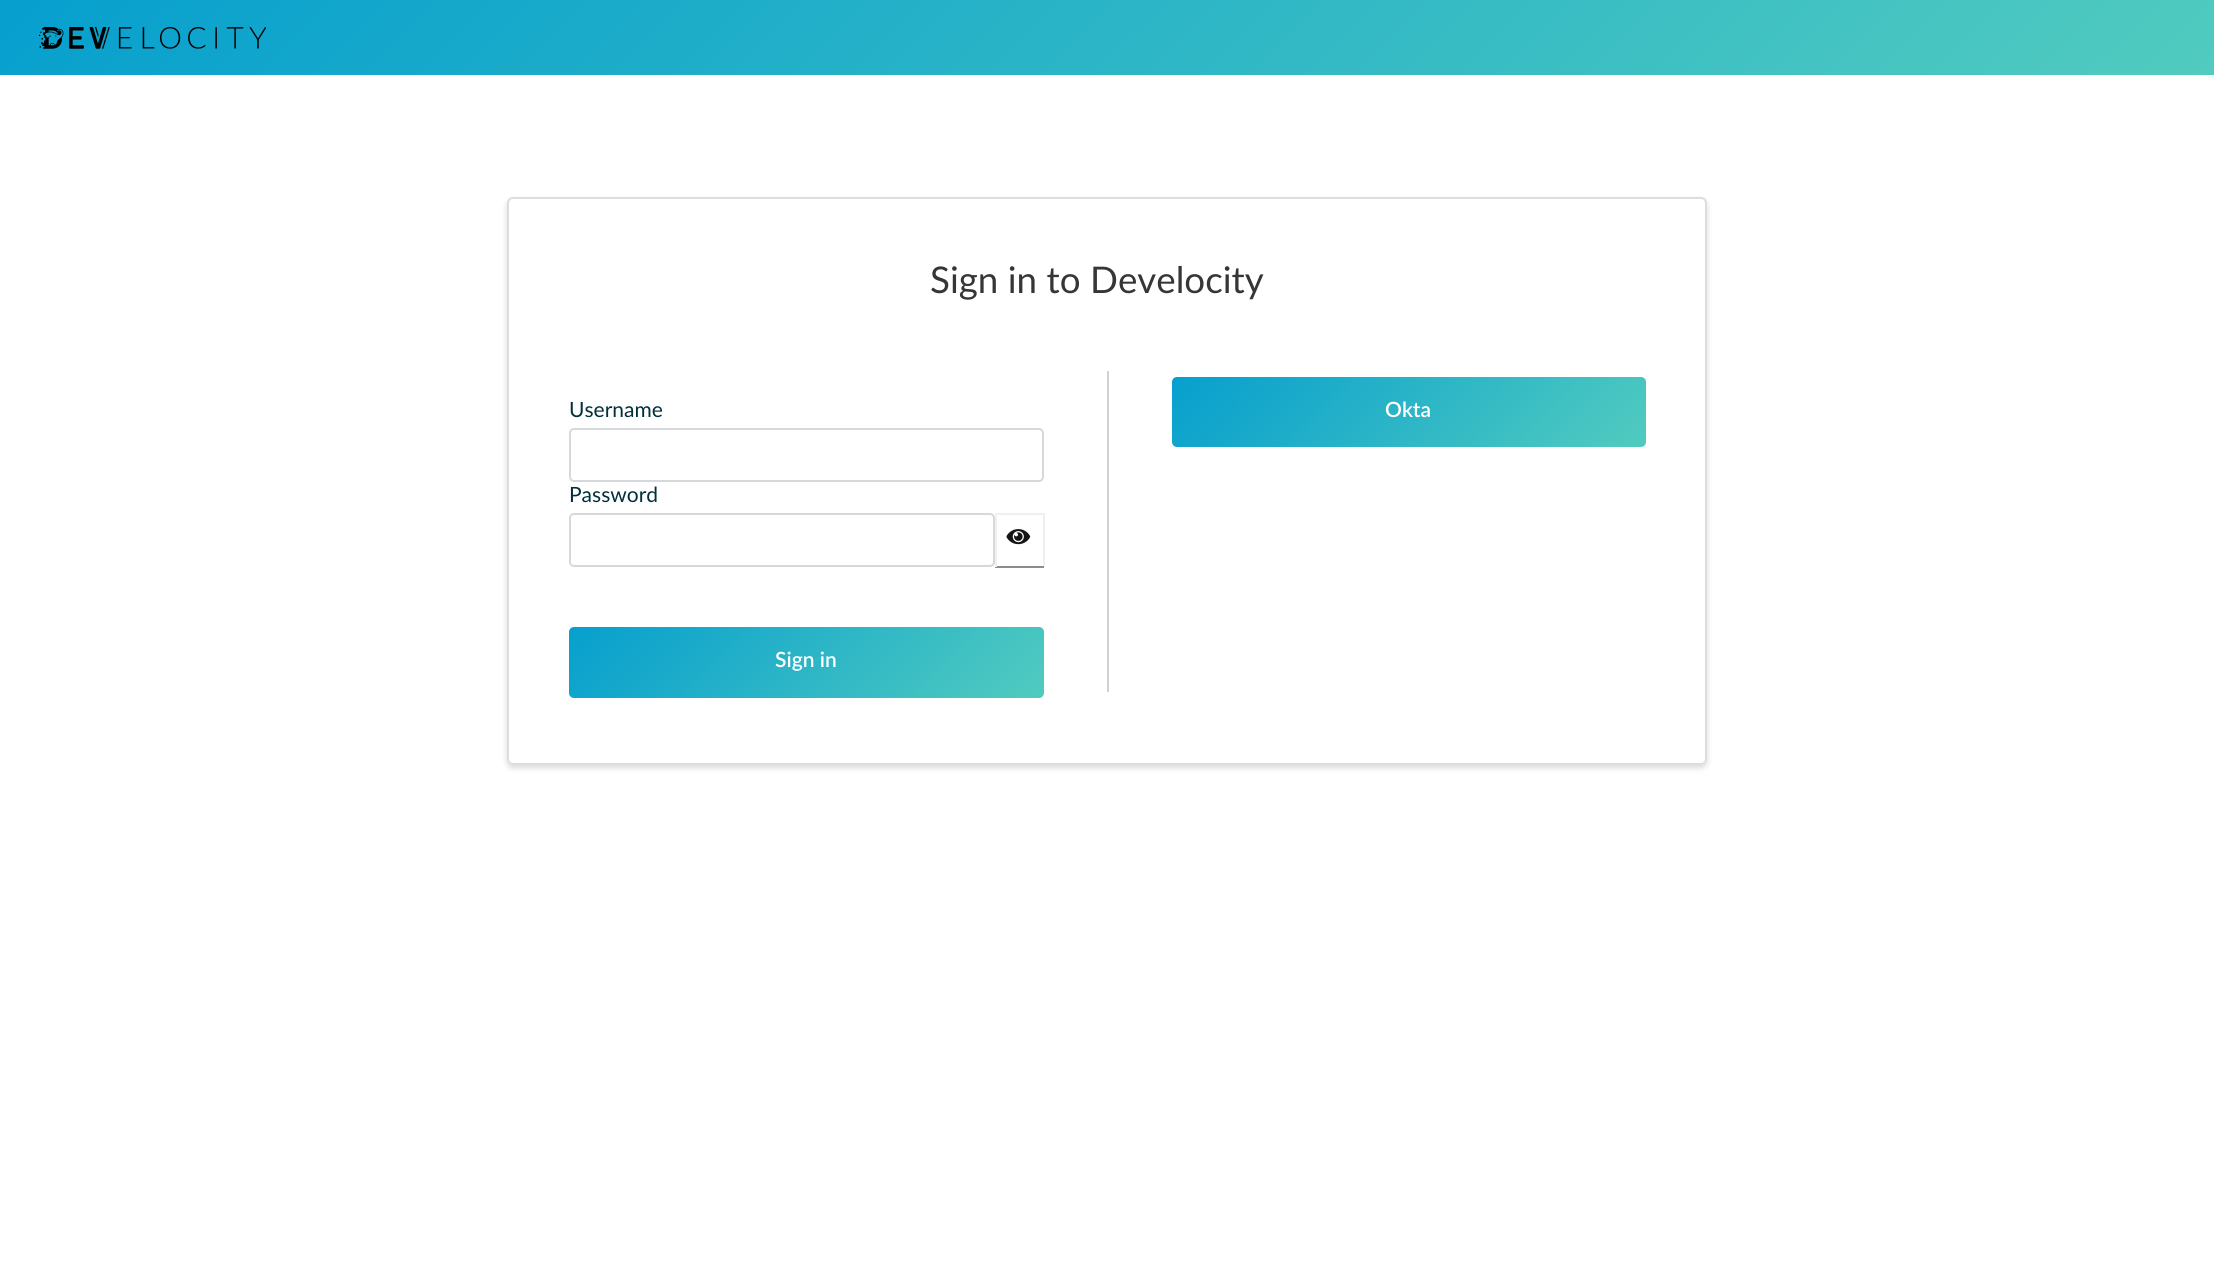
#include <cairo.h>
#include <math.h>
#include <stddef.h>


static void set_color(cairo_t *cr, unsigned color) {
    cairo_set_source_rgb(cr, (color >> 16) / 255.0, (color >> 8 & 255) / 255.0, (color & 255) / 255.0);
}

static void draw_text(cairo_t *cr, double x, double y, const char *s, const char *family, double size, int italic, int bold, unsigned color) {
    cairo_select_font_face(cr, family, italic ? CAIRO_FONT_SLANT_ITALIC : CAIRO_FONT_SLANT_NORMAL,
        bold ? CAIRO_FONT_WEIGHT_BOLD : CAIRO_FONT_WEIGHT_NORMAL);
    cairo_set_font_size(cr, size);
    set_color(cr, color);
    cairo_move_to(cr, x, y);
    cairo_show_text(cr, s);
}

static void fill_rect(cairo_t *cr, double x, double y, double w, double h, unsigned color) {
    set_color(cr, color);
    cairo_rectangle(cr, x, y, w, h);
    cairo_fill(cr);
}

static void rounded_rect(cairo_t *cr, double x, double y, double w, double h, double r) {
    cairo_new_sub_path(cr);
    cairo_arc(cr, x + w - r, y + h - r, r, 0, M_PI / 2);
    cairo_arc(cr, x + r, y + h - r, r, M_PI / 2, M_PI);
    cairo_arc(cr, x + r, y + r, r, M_PI, 1.5 * M_PI);
    cairo_arc(cr, x + w - r, y + r, r, 1.5 * M_PI, 2 * M_PI);
    cairo_close_path(cr);
}

static void draw_shadow(cairo_t *cr, double x, double y, double w, double h, double r, double blur, double alpha) {
    cairo_push_group_with_content(cr, CAIRO_CONTENT_ALPHA);
    cairo_set_operator(cr, CAIRO_OPERATOR_SOURCE);
    for (int i = 15; i >= -15 && fmin(w, h) + blur * i / 3 > 0; i -= 2) {
        double e = blur * i / 6;
        cairo_set_source_rgba(cr, 0, 0, 0, alpha * erfc((i - 1) / 8.5) / 2);
        rounded_rect(cr, x - e, y - e, w + 2 * e, h + 2 * e, fmax(0, fmin(r + e + blur * .6, fmin(w, h) / 2 + e)));
        cairo_fill(cr);
    }
    cairo_pattern_t *soft = cairo_pop_group(cr);
    cairo_mask(cr, soft);
    cairo_pattern_destroy(soft);
}

static void draw_image(cairo_t *cr, const char *path, double x, double y, double w, double h) {
    cairo_surface_t *image = cairo_image_surface_create_from_png(path);
    cairo_save(cr);
    cairo_set_source_surface(cr, image, x, y);
    cairo_rectangle(cr, x, y, w, h);
    cairo_fill(cr);
    cairo_restore(cr);
    cairo_surface_destroy(image);
}

int main(void) {
    cairo_surface_t *surface = cairo_image_surface_create(CAIRO_FORMAT_RGB24, 2214, 1273);
    cairo_t *cr = cairo_create(surface);
    cairo_font_options_t *options = cairo_font_options_create();
    cairo_font_options_set_hint_metrics(options, CAIRO_HINT_METRICS_OFF);
    cairo_font_options_set_hint_style(options, CAIRO_HINT_STYLE_NONE);
    cairo_set_font_options(cr, options);
    cairo_set_miter_limit(cr, 4);
    cairo_pattern_t *gradient;
    set_color(cr, 0xFFFFFF);
    cairo_paint(cr);
    gradient = cairo_pattern_create_linear(535, -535, 1679, 610);
    cairo_pattern_add_color_stop_rgba(gradient, 0, 0.024, 0.624, 0.808, 1);
    cairo_pattern_add_color_stop_rgba(gradient, 1, 0.318, 0.796, 0.749, 1);
    cairo_set_source(cr, gradient);
    cairo_pattern_destroy(gradient);
    cairo_rectangle(cr, 0, 0, 2214, 75);
    cairo_fill(cr);
    draw_image(cr, "assets/img1.png", 39, 27, 227, 22);
    cairo_save(cr);
    cairo_set_fill_rule(cr, CAIRO_FILL_RULE_EVEN_ODD);
    cairo_new_path(cr);
    cairo_move_to(cr, 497, 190);
    cairo_line_to(cr, 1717, 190);
    cairo_line_to(cr, 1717, 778);
    cairo_line_to(cr, 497, 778);
    cairo_close_path(cr);
    cairo_move_to(cr, 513, 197);
    cairo_line_to(cr, 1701, 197);
    cairo_curve_to(cr, 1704.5, 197, 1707, 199.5, 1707, 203);
    cairo_line_to(cr, 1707, 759);
    cairo_curve_to(cr, 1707, 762.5, 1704.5, 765, 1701, 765);
    cairo_line_to(cr, 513, 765);
    cairo_curve_to(cr, 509.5, 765, 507, 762.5, 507, 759);
    cairo_line_to(cr, 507, 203);
    cairo_curve_to(cr, 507, 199.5, 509.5, 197, 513, 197);
    cairo_close_path(cr);
    cairo_clip(cr);
    set_color(cr, 0x000000);
    draw_shadow(cr, 507, 200, 1200, 568, 6, 3, 0.15);
    cairo_restore(cr);
    rounded_rect(cr, 508, 198, 1198, 566, 5);
    set_color(cr, 0xDDDDDD);
    cairo_stroke(cr);
    draw_text(cr, 930, 293, "Sign in to Develocity", "Lato", 36.75, 0, 0, 0x363636);
    draw_text(cr, 569, 417, "Username", "Lato", 21, 0, 0, 0x02303A);
    rounded_rect(cr, 570, 429, 473, 52, 4);
    set_color(cr, 0xD6D9DB);
    cairo_stroke(cr);
    draw_text(cr, 569, 502, "Password", "Lato", 21, 0, 0, 0x02303A);
    rounded_rect(cr, 570, 514, 424, 52, 4);
    set_color(cr, 0xD6D9DB);
    cairo_stroke(cr);
    fill_rect(cr, 995, 513, 49, 2, 0xF0F0F0);
    fill_rect(cr, 1043, 513, 2, 54, 0xF0F0F0);
    fill_rect(cr, 995, 566, 49, 2, 0x8A8D90);
    fill_rect(cr, 995, 513, 2, 54, 0xF0F0F0);
    draw_image(cr, "assets/img2.png", 1006, 529, 25, 16);
    gradient = cairo_pattern_create_linear(670, 526, 943, 799);
    cairo_pattern_add_color_stop_rgba(gradient, 0, 0.024, 0.624, 0.808, 1);
    cairo_pattern_add_color_stop_rgba(gradient, 1, 0.318, 0.796, 0.749, 1);
    cairo_set_source(cr, gradient);
    cairo_pattern_destroy(gradient);
    rounded_rect(cr, 569, 627, 475, 71, 5);
    cairo_fill(cr);
    draw_text(cr, 775, 667, "Sign in", "Lato SemiBold", 21, 0, 0, 0xFFFFFF);
    fill_rect(cr, 1107, 371, 2, 321, 0xD2D2D2);
    gradient = cairo_pattern_create_linear(1272, 276, 1545, 548);
    cairo_pattern_add_color_stop_rgba(gradient, 0, 0.024, 0.624, 0.808, 1);
    cairo_pattern_add_color_stop_rgba(gradient, 1, 0.318, 0.796, 0.749, 1);
    cairo_set_source(cr, gradient);
    cairo_pattern_destroy(gradient);
    rounded_rect(cr, 1172, 377, 474, 70, 5);
    cairo_fill(cr);
    draw_text(cr, 1385, 417, "Okta", "Lato SemiBold", 21, 0, 0, 0xFFFFFF);
    cairo_surface_write_to_png(surface, "output.png");
    cairo_font_options_destroy(options);
    cairo_destroy(cr);
    cairo_surface_destroy(surface);
    return 0;
}
